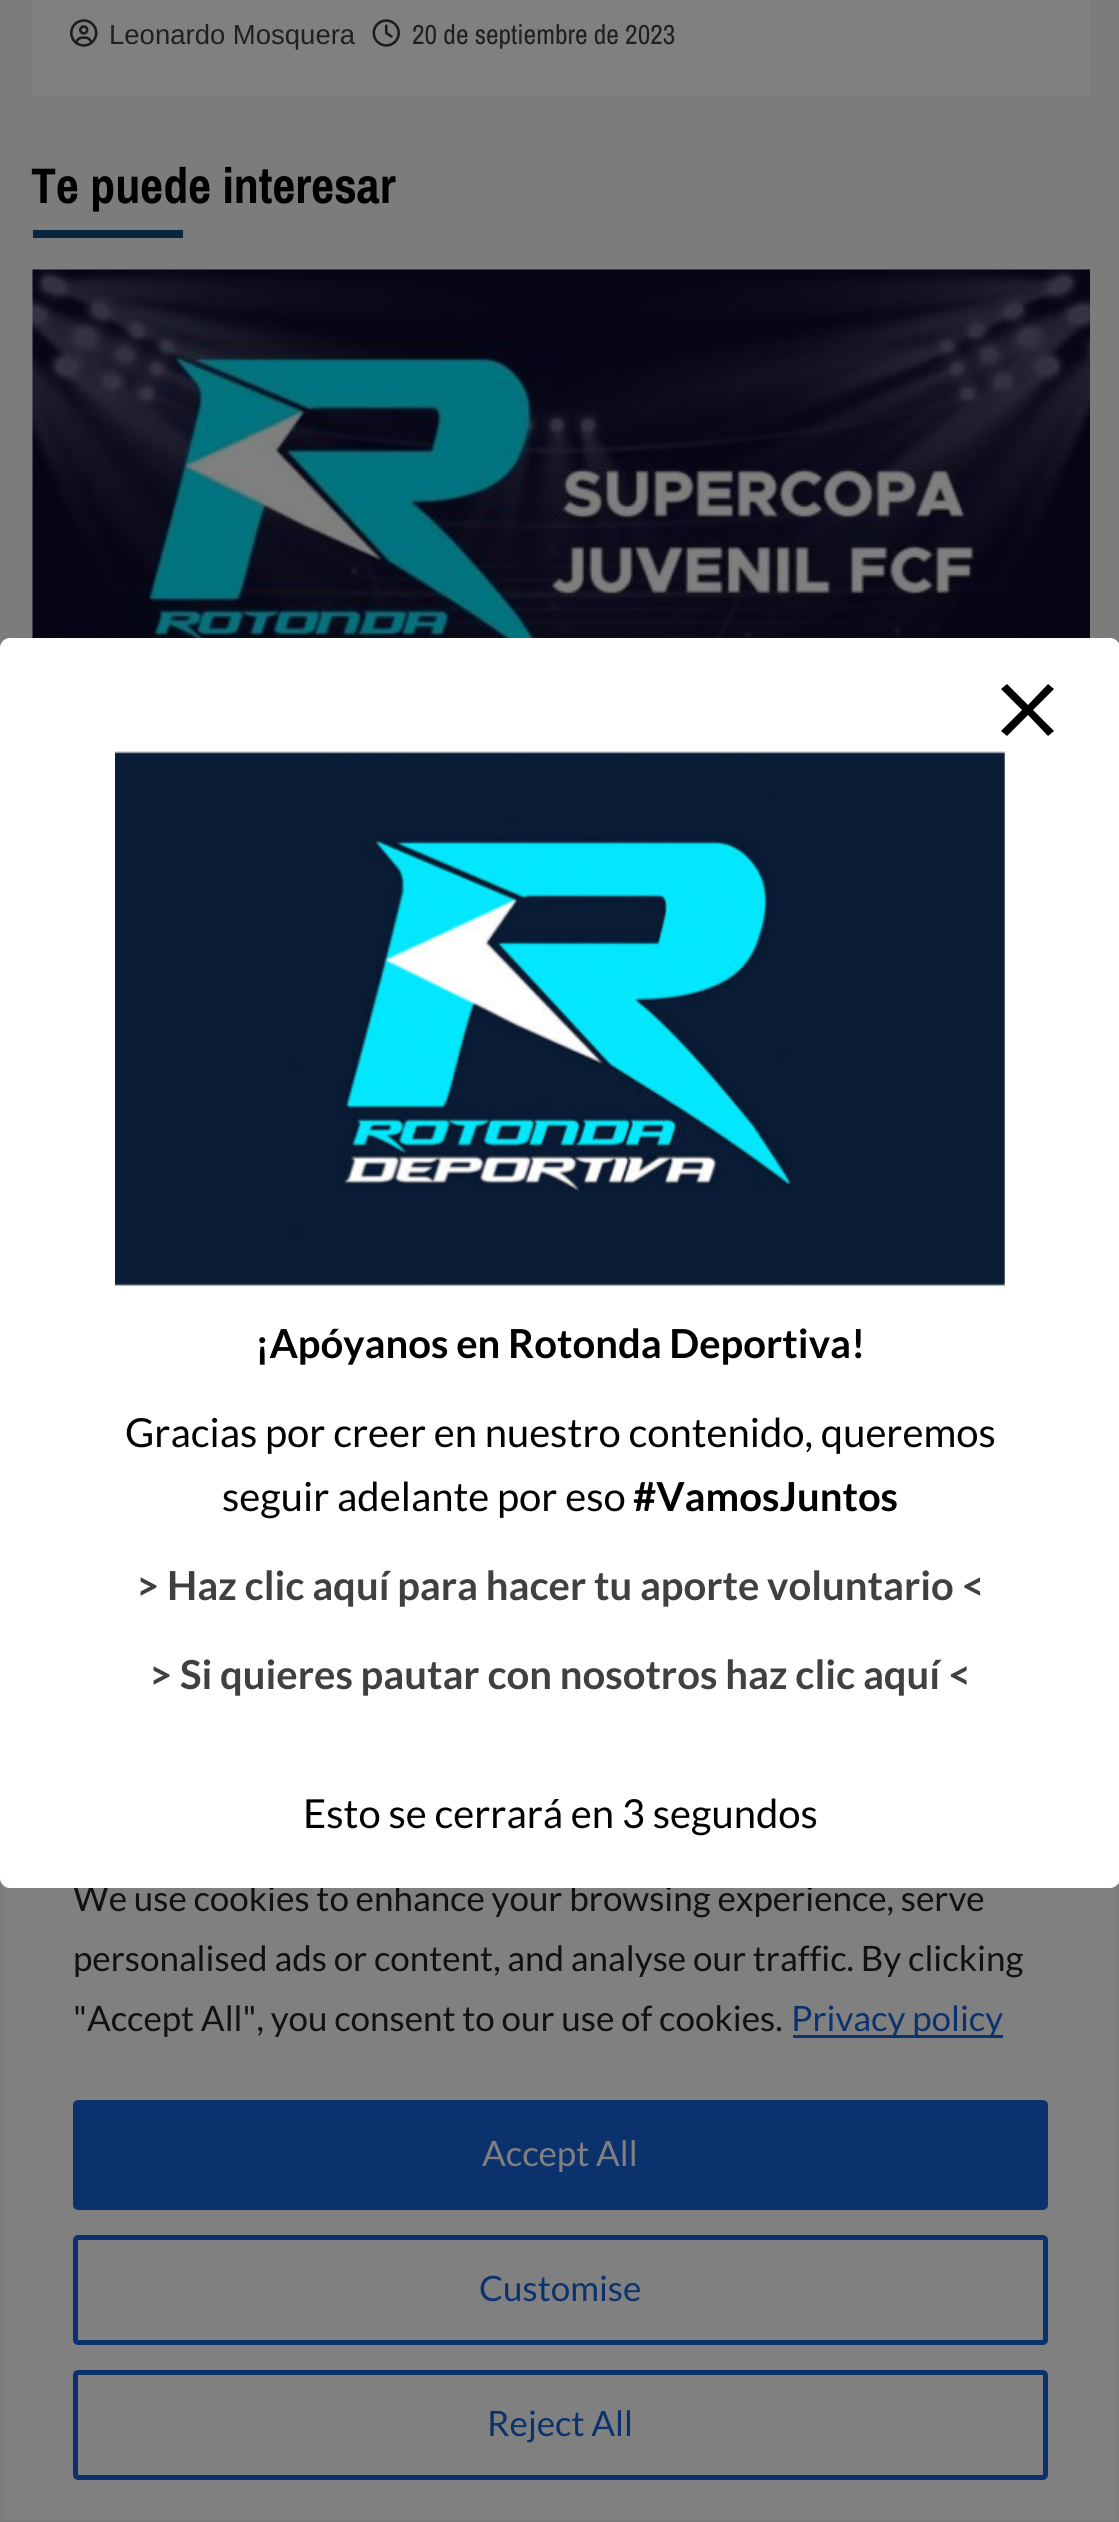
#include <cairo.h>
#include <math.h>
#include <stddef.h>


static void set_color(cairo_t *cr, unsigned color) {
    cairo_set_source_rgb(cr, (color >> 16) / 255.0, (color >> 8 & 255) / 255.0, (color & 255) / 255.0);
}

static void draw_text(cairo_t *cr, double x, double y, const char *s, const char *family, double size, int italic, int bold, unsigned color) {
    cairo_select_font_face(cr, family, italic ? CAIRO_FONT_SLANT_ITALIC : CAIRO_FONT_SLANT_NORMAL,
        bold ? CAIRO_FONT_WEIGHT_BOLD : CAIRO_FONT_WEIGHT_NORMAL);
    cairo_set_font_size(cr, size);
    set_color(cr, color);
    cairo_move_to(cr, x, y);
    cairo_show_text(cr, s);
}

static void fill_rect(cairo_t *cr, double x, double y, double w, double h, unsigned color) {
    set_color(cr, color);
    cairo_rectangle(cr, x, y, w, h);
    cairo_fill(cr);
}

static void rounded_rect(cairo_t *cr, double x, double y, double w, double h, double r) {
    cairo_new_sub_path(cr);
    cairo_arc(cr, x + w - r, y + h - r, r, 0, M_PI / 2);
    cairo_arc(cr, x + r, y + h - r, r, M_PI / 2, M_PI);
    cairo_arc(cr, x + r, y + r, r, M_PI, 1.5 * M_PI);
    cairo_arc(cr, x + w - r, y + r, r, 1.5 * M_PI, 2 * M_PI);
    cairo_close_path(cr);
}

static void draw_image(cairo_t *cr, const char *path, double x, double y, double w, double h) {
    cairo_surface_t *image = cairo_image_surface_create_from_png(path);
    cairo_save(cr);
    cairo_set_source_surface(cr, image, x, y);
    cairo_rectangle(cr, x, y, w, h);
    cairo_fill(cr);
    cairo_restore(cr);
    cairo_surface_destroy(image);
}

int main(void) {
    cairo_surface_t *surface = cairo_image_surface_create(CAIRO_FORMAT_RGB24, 1119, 2522);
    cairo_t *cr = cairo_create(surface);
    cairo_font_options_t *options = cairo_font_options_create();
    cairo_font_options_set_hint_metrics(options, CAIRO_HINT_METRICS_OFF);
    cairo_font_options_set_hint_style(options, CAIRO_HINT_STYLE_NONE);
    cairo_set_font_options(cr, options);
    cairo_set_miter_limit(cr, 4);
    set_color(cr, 0x7C7C7C);
    cairo_paint(cr);
    fill_rect(cr, 33, 0, 1057, 95, 0x808080);
    draw_image(cr, "assets/img1.png", 70, 19, 28, 28);
    draw_text(cr, 109, 44, "Leonardo Mosquera", "Liberation Sans", 27.5, 0, 0, 0x202020);
    draw_image(cr, "assets/img2.png", 372, 19, 28, 28);
    draw_text(cr, 412, 44, "20 de septiembre de 2023", "Archivo Narrow", 27.5, 0, 0, 0x202020);
    draw_text(cr, 31, 203, "Te puede interesar", "Archivo Narrow", 50, 0, 1, 0x000000);
    fill_rect(cr, 33, 230, 150, 8, 0x06273E);
    draw_image(cr, "assets/img3.png", 32, 269, 1058, 369);
    fill_rect(cr, 3, 1885, 1114, 635, 0x808080);
    draw_text(cr, 73, 1911, "We use cookies to enhance your browsing experience, serve", "Lato", 35, 0, 0, 0x111111);
    set_color(cr, 0xFFFFFF);
    rounded_rect(cr, 1.5, 639.5, 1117, 1247, 8.5);
    cairo_fill_preserve(cr);
    cairo_set_line_width(cr, 3);
    cairo_stroke(cr);
    set_color(cr, 0x000000);
    cairo_new_path(cr);
    cairo_move_to(cr, 1054, 689);
    cairo_line_to(cr, 1048, 684);
    cairo_line_to(cr, 1028, 705);
    cairo_line_to(cr, 1007, 684);
    cairo_line_to(cr, 1001, 689);
    cairo_line_to(cr, 1022, 710);
    cairo_line_to(cr, 1001, 731);
    cairo_line_to(cr, 1007, 736);
    cairo_line_to(cr, 1028, 715);
    cairo_line_to(cr, 1048, 736);
    cairo_line_to(cr, 1054, 731);
    cairo_line_to(cr, 1033, 710);
    cairo_close_path(cr);
    cairo_fill(cr);
    draw_image(cr, "assets/img4.png", 115, 751, 890, 535);
    draw_text(cr, 255, 1358, "¡Apóyanos en Rotonda Deportiva!", "Lato", 40, 0, 1, 0x000000);
    draw_text(cr, 125, 1447, "Gracias por creer en nuestro contenido, queremos", "Lato", 40, 0, 0, 0x000000);
    draw_text(cr, 222, 1511, "seguir adelante por eso", "Lato", 40, 0, 0, 0x000000);
    draw_text(cr, 633, 1511, "#VamosJuntos", "Lato", 40, 0, 1, 0x000000);
    draw_text(cr, 136, 1600, "> Haz clic aquí para hacer tu aporte voluntario <", "Lato", 40, 0, 1, 0x404040);
    draw_text(cr, 149, 1689, "> Si quieres pautar con nosotros haz clic aquí <", "Lato", 40, 0, 1, 0x404040);
    draw_text(cr, 303, 1828, "Esto se cerrará en 3 segundos", "Lato", 40, 0, 0, 0x000000);
    draw_text(cr, 73, 1971, "personalised ads or content, and analyse our traffic. By clicking", "Lato", 35, 0, 0, 0x111111);
    draw_text(cr, 73, 2031, "\"Accept All\", you consent to our use of cookies.", "Lato", 35, 0, 0, 0x111111);
    fill_rect(cr, 793, 2035, 210, 3, 0x0C326E);
    draw_text(cr, 791, 2031, "Privacy policy", "Lato", 35, 0, 0, 0x0C326E);
    rounded_rect(cr, 75.5, 2102.5, 970, 105, 2.5);
    cairo_fill_preserve(cr);
    cairo_set_line_width(cr, 5);
    cairo_stroke(cr);
    draw_text(cr, 482, 2166, "Accept All", "Lato", 35, 0, 0, 0x808080);
    rounded_rect(cr, 75.5, 2237.5, 970, 105, 2.5);
    set_color(cr, 0x0C326E);
    cairo_stroke(cr);
    draw_text(cr, 479, 2301, "Customise", "Lato", 35, 0, 0, 0x0C326E);
    rounded_rect(cr, 75.5, 2372.5, 970, 105, 2.5);
    cairo_stroke(cr);
    draw_text(cr, 487, 2436, "Reject All", "Lato", 35, 0, 0, 0x0C326E);
    cairo_surface_write_to_png(surface, "output.png");
    cairo_font_options_destroy(options);
    cairo_destroy(cr);
    cairo_surface_destroy(surface);
    return 0;
}
